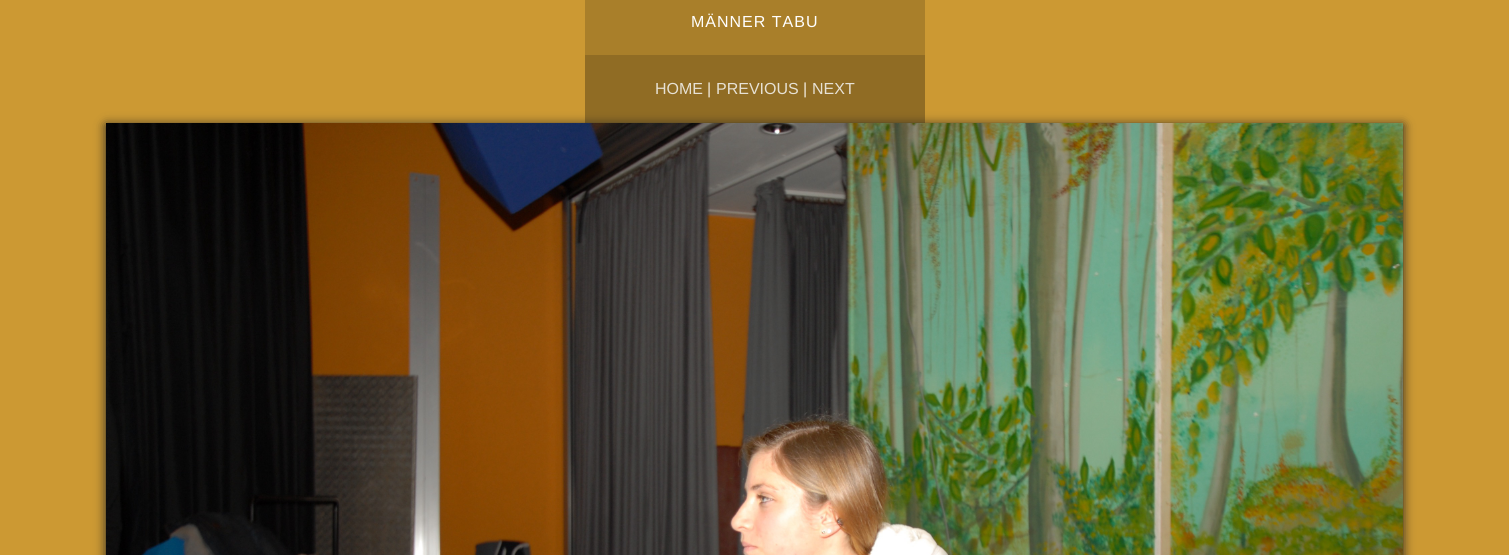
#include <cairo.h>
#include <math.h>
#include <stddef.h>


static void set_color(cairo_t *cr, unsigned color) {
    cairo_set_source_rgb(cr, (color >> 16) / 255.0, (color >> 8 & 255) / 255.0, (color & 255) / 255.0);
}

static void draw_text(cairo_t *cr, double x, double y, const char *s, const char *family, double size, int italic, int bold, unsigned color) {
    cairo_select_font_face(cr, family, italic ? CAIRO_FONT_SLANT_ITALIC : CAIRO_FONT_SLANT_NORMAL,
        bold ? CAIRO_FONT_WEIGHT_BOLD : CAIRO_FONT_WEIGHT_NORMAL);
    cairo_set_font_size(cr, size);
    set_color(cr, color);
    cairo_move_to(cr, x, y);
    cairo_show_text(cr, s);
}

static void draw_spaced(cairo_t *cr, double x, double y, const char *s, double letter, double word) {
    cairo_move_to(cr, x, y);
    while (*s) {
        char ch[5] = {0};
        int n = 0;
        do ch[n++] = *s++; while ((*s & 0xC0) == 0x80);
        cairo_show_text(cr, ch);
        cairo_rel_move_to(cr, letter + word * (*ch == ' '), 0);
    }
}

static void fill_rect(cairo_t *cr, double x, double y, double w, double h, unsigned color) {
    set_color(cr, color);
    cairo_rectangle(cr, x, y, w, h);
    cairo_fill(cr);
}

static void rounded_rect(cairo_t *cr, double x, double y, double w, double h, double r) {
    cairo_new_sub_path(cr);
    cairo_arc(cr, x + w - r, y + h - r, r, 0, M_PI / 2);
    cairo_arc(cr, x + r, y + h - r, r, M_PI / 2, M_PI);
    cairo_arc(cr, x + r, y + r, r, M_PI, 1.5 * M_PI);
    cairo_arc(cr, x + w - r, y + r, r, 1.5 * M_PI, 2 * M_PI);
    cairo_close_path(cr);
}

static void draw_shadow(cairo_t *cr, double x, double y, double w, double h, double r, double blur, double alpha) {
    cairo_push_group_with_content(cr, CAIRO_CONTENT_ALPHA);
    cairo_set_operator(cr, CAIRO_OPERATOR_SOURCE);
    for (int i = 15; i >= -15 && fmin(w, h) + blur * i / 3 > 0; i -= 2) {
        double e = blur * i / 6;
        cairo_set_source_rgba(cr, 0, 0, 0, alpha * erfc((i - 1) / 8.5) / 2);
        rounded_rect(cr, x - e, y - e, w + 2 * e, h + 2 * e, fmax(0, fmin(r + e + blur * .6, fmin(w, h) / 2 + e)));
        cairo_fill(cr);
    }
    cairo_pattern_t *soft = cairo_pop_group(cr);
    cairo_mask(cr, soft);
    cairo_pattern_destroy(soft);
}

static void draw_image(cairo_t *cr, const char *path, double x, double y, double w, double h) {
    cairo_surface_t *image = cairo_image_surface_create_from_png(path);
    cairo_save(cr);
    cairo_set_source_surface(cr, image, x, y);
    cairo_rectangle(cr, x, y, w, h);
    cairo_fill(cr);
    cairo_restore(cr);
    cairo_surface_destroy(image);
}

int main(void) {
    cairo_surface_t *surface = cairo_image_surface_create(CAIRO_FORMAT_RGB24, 1509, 555);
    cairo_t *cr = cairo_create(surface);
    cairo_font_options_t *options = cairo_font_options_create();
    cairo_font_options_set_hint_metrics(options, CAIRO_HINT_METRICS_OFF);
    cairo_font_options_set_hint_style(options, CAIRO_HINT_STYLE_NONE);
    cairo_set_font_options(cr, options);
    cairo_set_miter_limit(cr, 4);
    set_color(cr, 0xCC9933);
    cairo_paint(cr);
    fill_rect(cr, 585, 0, 340, 55, 0xA97F2A);
    cairo_select_font_face(cr, "Liberation Sans", CAIRO_FONT_SLANT_NORMAL, CAIRO_FONT_WEIGHT_NORMAL);
    cairo_set_font_size(cr, 16);
    set_color(cr, 0xFFFFFF);
    draw_spaced(cr, 691, 27, "MÄNNER TABU", 1, 0);
    fill_rect(cr, 585, 55, 340, 68, 0x906C24);
    draw_text(cr, 655, 94, "HOME", "Liberation Sans", 16, 0, 0, 0xE7E1D4);
    draw_text(cr, 707, 94, "|", "Liberation Sans", 16, 0, 0, 0xF2ECDF);
    draw_text(cr, 716, 94, "PREVIOUS", "Liberation Sans", 16, 0, 0, 0xE7E1D4);
    draw_text(cr, 803, 94, "|", "Liberation Sans", 16, 0, 0, 0xF2ECDF);
    draw_text(cr, 812, 94, "NEXT", "Liberation Sans", 16, 0, 0, 0xE7E1D4);
    set_color(cr, 0x232323);
    draw_shadow(cr, 106, 125, 1297, 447, 0, 5.5, 1);
    draw_image(cr, "assets/img1.png", 106, 123, 1297, 432);
    cairo_surface_write_to_png(surface, "output.png");
    cairo_font_options_destroy(options);
    cairo_destroy(cr);
    cairo_surface_destroy(surface);
    return 0;
}
